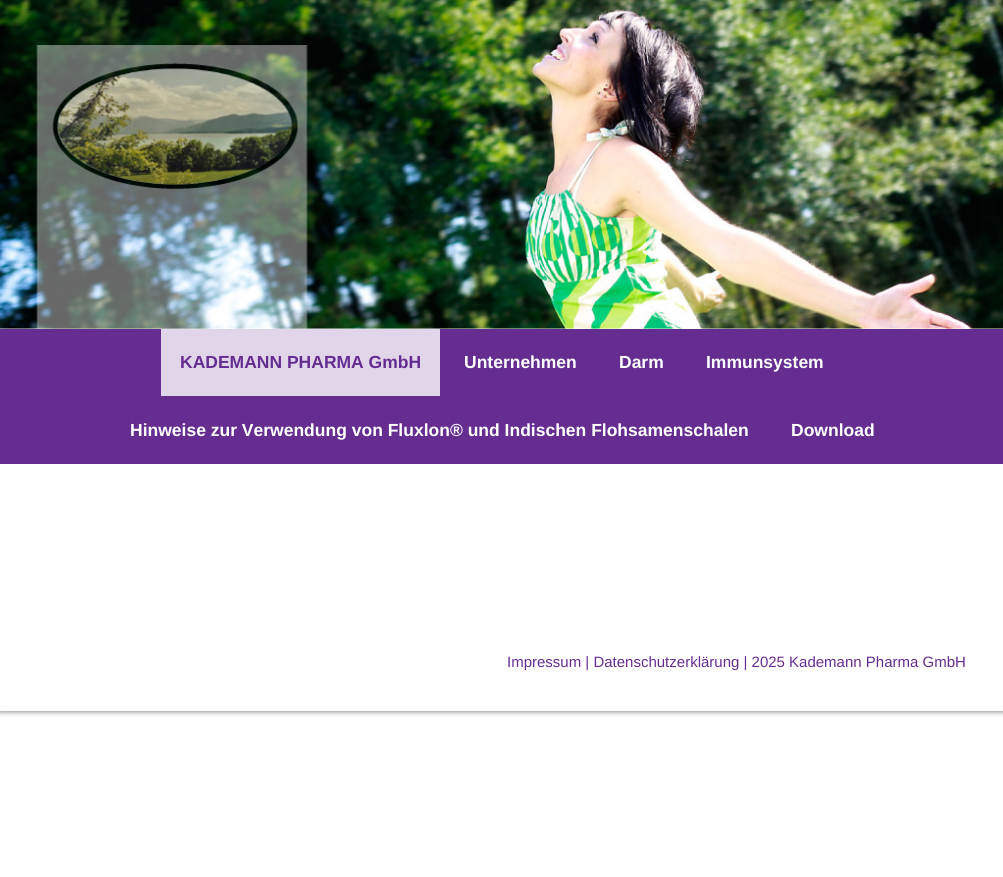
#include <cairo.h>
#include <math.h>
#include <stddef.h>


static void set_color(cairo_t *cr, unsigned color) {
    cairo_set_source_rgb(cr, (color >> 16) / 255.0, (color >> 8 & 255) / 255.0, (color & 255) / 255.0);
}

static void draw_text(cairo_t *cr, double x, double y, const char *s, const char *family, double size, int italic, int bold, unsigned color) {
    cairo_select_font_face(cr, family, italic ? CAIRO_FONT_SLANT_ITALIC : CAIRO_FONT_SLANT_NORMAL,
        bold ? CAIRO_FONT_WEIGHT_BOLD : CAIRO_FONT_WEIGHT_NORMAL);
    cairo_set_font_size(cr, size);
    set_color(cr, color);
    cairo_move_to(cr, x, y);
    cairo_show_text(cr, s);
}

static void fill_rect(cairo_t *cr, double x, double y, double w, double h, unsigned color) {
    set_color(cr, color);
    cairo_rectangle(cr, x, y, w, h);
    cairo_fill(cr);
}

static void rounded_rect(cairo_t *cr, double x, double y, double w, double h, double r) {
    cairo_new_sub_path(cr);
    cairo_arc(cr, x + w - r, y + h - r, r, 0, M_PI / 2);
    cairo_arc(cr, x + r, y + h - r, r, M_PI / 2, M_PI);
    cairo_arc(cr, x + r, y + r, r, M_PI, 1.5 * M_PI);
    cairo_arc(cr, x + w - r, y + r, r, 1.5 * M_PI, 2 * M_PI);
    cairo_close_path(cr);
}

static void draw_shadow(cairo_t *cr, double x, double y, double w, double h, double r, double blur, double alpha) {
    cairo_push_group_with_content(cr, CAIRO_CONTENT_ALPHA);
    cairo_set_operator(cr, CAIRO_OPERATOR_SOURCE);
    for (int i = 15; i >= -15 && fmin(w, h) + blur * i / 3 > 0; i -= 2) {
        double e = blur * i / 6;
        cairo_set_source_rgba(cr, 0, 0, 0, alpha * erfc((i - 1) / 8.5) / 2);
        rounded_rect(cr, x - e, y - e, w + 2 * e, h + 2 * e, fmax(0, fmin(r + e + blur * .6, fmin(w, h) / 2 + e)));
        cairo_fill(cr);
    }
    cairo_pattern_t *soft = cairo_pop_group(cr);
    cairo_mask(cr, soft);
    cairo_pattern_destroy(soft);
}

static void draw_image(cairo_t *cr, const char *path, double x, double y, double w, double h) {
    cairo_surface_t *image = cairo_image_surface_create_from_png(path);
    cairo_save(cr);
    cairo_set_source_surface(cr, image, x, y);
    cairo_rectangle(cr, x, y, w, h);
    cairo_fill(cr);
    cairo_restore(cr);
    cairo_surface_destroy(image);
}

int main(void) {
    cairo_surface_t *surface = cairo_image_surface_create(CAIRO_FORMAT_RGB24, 1003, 877);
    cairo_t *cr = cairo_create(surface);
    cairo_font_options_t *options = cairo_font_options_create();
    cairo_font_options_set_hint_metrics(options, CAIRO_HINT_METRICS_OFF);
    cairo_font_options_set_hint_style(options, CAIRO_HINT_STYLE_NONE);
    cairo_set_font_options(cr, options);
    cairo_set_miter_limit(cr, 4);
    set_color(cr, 0xFFFFFF);
    cairo_paint(cr);
    cairo_save(cr);
    cairo_rectangle(cr, 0, 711, 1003, 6);
    cairo_clip(cr);
    set_color(cr, 0x666666);
    draw_shadow(cr, 0, 0, 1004, 711, 0, 3, 1);
    cairo_restore(cr);
    draw_image(cr, "assets/img1.png", 0, 0, 1003, 329);
    draw_image(cr, "assets/img2.png", 36, 45, 272, 284);
    fill_rect(cr, 0, 329, 1003, 135, 0x662D91);
    fill_rect(cr, 161, 329, 279, 67, 0xE0D5E9);
    draw_text(cr, 180, 368, "KADEMANN PHARMA GmbH", "Liberation Sans", 17.5, 0, 1, 0x662D91);
    draw_text(cr, 464, 368, "Unternehmen", "Liberation Sans", 17.5, 0, 1, 0xFFFFFF);
    draw_text(cr, 619, 368, "Darm", "Liberation Sans", 17.5, 0, 1, 0xFFFFFF);
    draw_text(cr, 706, 368, "Immunsystem", "Liberation Sans", 17.5, 0, 1, 0xFFFFFF);
    draw_text(cr, 130, 436, "Hinweise zur Verwendung von Fluxlon® und Indischen Flohsamenschalen", "Liberation Sans", 17.5, 0, 1, 0xFFFFFF);
    draw_text(cr, 791, 436, "Download", "Liberation Sans", 17.5, 0, 1, 0xFFFFFF);
    draw_text(cr, 507, 667, "Impressum | Datenschutzerklärung | 2025 Kademann Pharma GmbH", "Liberation Sans", 15, 0, 0, 0x662D91);
    cairo_surface_write_to_png(surface, "output.png");
    cairo_font_options_destroy(options);
    cairo_destroy(cr);
    cairo_surface_destroy(surface);
    return 0;
}
